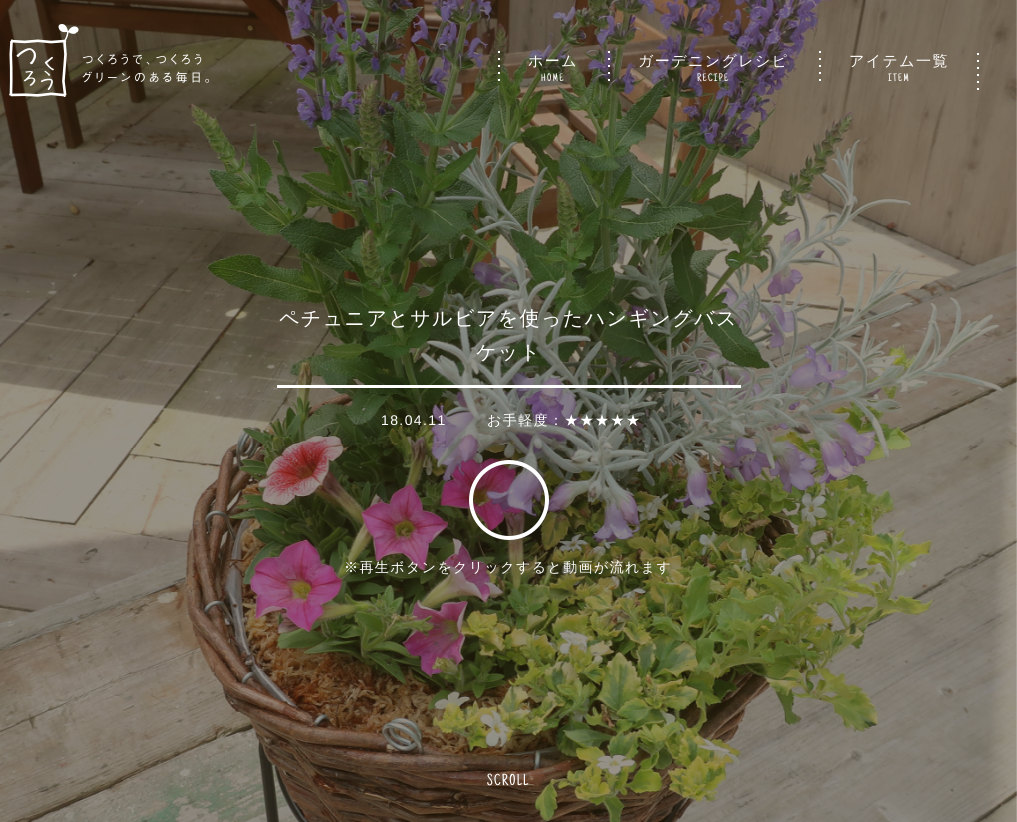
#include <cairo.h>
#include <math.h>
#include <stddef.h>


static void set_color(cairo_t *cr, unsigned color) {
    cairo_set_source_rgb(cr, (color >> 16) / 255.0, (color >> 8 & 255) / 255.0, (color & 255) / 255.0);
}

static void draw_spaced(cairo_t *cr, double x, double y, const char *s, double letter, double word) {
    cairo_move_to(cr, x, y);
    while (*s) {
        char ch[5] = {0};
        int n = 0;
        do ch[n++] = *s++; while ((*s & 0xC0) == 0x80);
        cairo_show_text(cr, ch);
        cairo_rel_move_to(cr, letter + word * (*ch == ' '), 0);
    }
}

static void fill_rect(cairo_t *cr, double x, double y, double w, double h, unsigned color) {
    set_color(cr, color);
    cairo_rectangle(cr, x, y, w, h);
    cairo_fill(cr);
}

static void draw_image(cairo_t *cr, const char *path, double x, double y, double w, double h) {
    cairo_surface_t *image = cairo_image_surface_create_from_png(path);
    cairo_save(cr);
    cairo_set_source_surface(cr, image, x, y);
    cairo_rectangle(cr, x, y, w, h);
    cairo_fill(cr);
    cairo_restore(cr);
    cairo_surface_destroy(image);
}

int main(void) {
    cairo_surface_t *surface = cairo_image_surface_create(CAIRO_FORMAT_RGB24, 1017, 822);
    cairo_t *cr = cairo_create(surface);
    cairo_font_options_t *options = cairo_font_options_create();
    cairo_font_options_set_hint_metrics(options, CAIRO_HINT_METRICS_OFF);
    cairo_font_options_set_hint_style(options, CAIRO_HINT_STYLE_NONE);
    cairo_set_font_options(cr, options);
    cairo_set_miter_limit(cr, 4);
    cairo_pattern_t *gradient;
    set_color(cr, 0xFFFFFF);
    cairo_paint(cr);
    draw_image(cr, "assets/img2.png", 0, 0, 1017, 822);
    draw_image(cr, "assets/img1.png", 9, 24, 200, 73);
    cairo_select_font_face(cr, "WenQuanYi Zen Hei Medium", CAIRO_FONT_SLANT_NORMAL, CAIRO_FONT_WEIGHT_NORMAL);
    cairo_set_font_size(cr, 15);
    set_color(cr, 0xFFFFFF);
    draw_spaced(cr, 528, 66, "ホーム", 1.4, 0);
    cairo_select_font_face(cr, "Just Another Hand", CAIRO_FONT_SLANT_NORMAL, CAIRO_FONT_WEIGHT_NORMAL);
    cairo_set_font_size(cr, 11);
    draw_spaced(cr, 541, 81, "HOME", 1.4, 0);
    cairo_select_font_face(cr, "WenQuanYi Zen Hei Medium", CAIRO_FONT_SLANT_NORMAL, CAIRO_FONT_WEIGHT_NORMAL);
    cairo_set_font_size(cr, 15);
    draw_spaced(cr, 638, 66, "ガーデニングレシピ", 1.4, 0);
    cairo_select_font_face(cr, "Just Another Hand", CAIRO_FONT_SLANT_NORMAL, CAIRO_FONT_WEIGHT_NORMAL);
    cairo_set_font_size(cr, 11);
    draw_spaced(cr, 697, 81, "RECIPE", 1.4, 0);
    gradient = cairo_pattern_create_linear(820, 58, 820, 65);
    cairo_pattern_add_color_stop_rgba(gradient, 0, 1, 1, 1, 1);
    cairo_pattern_add_color_stop_rgba(gradient, 0.29, 1, 1, 1, 1);
    cairo_pattern_add_color_stop_rgba(gradient, 0.29, 0.467, 0.412, 0.341, 1);
    cairo_pattern_add_color_stop_rgba(gradient, 1, 0.467, 0.412, 0.341, 1);
    cairo_set_source(cr, gradient);
    cairo_pattern_destroy(gradient);
    cairo_rectangle(cr, 819, 58, 2, 7);
    cairo_fill(cr);
    gradient = cairo_pattern_create_linear(820, 65, 820, 72);
    cairo_pattern_add_color_stop_rgba(gradient, 0, 1, 1, 1, 1);
    cairo_pattern_add_color_stop_rgba(gradient, 0.29, 1, 1, 1, 1);
    cairo_pattern_add_color_stop_rgba(gradient, 0.29, 0.463, 0.408, 0.337, 1);
    cairo_pattern_add_color_stop_rgba(gradient, 1, 0.463, 0.408, 0.337, 1);
    cairo_set_source(cr, gradient);
    cairo_pattern_destroy(gradient);
    cairo_rectangle(cr, 819, 65, 2, 7);
    cairo_fill(cr);
    cairo_select_font_face(cr, "WenQuanYi Zen Hei Medium", CAIRO_FONT_SLANT_NORMAL, CAIRO_FONT_WEIGHT_NORMAL);
    cairo_set_font_size(cr, 15);
    set_color(cr, 0xFFFFFF);
    draw_spaced(cr, 849, 66, "アイテム一覧", 1.4, 0);
    cairo_select_font_face(cr, "Just Another Hand", CAIRO_FONT_SLANT_NORMAL, CAIRO_FONT_WEIGHT_NORMAL);
    cairo_set_font_size(cr, 11);
    draw_spaced(cr, 888, 81, "ITEM", 1.4, 0);
    gradient = cairo_pattern_create_linear(978, 60, 978, 67);
    cairo_pattern_add_color_stop_rgba(gradient, 0, 1, 1, 1, 1);
    cairo_pattern_add_color_stop_rgba(gradient, 0.29, 1, 1, 1, 1);
    cairo_pattern_add_color_stop_rgba(gradient, 0.29, 0.459, 0.412, 0.345, 1);
    cairo_pattern_add_color_stop_rgba(gradient, 1, 0.459, 0.412, 0.345, 1);
    cairo_set_source(cr, gradient);
    cairo_pattern_destroy(gradient);
    cairo_rectangle(cr, 977, 60, 2, 7);
    cairo_fill(cr);
    gradient = cairo_pattern_create_linear(978, 67, 978, 74);
    cairo_pattern_add_color_stop_rgba(gradient, 0, 1, 1, 1, 1);
    cairo_pattern_add_color_stop_rgba(gradient, 0.29, 1, 1, 1, 1);
    cairo_pattern_add_color_stop_rgba(gradient, 0.29, 0.459, 0.408, 0.341, 1);
    cairo_pattern_add_color_stop_rgba(gradient, 1, 0.459, 0.408, 0.341, 1);
    cairo_set_source(cr, gradient);
    cairo_pattern_destroy(gradient);
    cairo_rectangle(cr, 977, 67, 2, 7);
    cairo_fill(cr);
    gradient = cairo_pattern_create_linear(978, 81, 978, 88);
    cairo_pattern_add_color_stop_rgba(gradient, 0, 1, 1, 1, 1);
    cairo_pattern_add_color_stop_rgba(gradient, 0.29, 1, 1, 1, 1);
    cairo_pattern_add_color_stop_rgba(gradient, 0.29, 0.471, 0.42, 0.353, 1);
    cairo_pattern_add_color_stop_rgba(gradient, 1, 0.471, 0.42, 0.353, 1);
    cairo_set_source(cr, gradient);
    cairo_pattern_destroy(gradient);
    cairo_rectangle(cr, 977, 81, 2, 7);
    cairo_fill(cr);
    gradient = cairo_pattern_create_linear(978, 88, 978, 95);
    cairo_pattern_add_color_stop_rgba(gradient, 0, 1, 1, 1, 1);
    cairo_pattern_add_color_stop_rgba(gradient, 0.29, 1, 1, 1, 1);
    cairo_pattern_add_color_stop_rgba(gradient, 0.29, 0.471, 0.416, 0.349, 1);
    cairo_pattern_add_color_stop_rgba(gradient, 1, 0.471, 0.416, 0.349, 1);
    cairo_set_source(cr, gradient);
    cairo_pattern_destroy(gradient);
    cairo_rectangle(cr, 977, 88, 2, 2);
    cairo_fill(cr);
    fill_rect(cr, 277, 385, 464, 3, 0xFFFFFF);
    cairo_select_font_face(cr, "WenQuanYi Zen Hei Medium", CAIRO_FONT_SLANT_NORMAL, CAIRO_FONT_WEIGHT_NORMAL);
    cairo_set_font_size(cr, 20);
    draw_spaced(cr, 279, 325, "ペチュニアとサルビアを使ったハンギングバス", 1.4, 0);
    draw_spaced(cr, 476, 359, "ケット", 1.4, 0);
    cairo_select_font_face(cr, "Liberation Sans", CAIRO_FONT_SLANT_NORMAL, CAIRO_FONT_WEIGHT_NORMAL);
    cairo_set_font_size(cr, 14);
    draw_spaced(cr, 381, 425, "18.04.11", 1.4, 0);
    cairo_select_font_face(cr, "WenQuanYi Zen Hei Medium", CAIRO_FONT_SLANT_NORMAL, CAIRO_FONT_WEIGHT_NORMAL);
    draw_spaced(cr, 487, 425, "お手軽度：★★★★★", 1.4, 0);
    cairo_new_path(cr);
    cairo_arc(cr, 509, 500, 38, 0, 2 * M_PI);
    cairo_set_line_width(cr, 4);
    cairo_stroke(cr);
    draw_spaced(cr, 344, 572, "※再生ボタンをクリックすると動画が流れます", 1.4, 0);
    cairo_select_font_face(cr, "Just Another Hand", CAIRO_FONT_SLANT_NORMAL, CAIRO_FONT_WEIGHT_NORMAL);
    cairo_set_font_size(cr, 16);
    draw_spaced(cr, 487, 785, "SCROLL", 1.4, 0);
    cairo_surface_write_to_png(surface, "output.png");
    cairo_font_options_destroy(options);
    cairo_destroy(cr);
    cairo_surface_destroy(surface);
    return 0;
}
